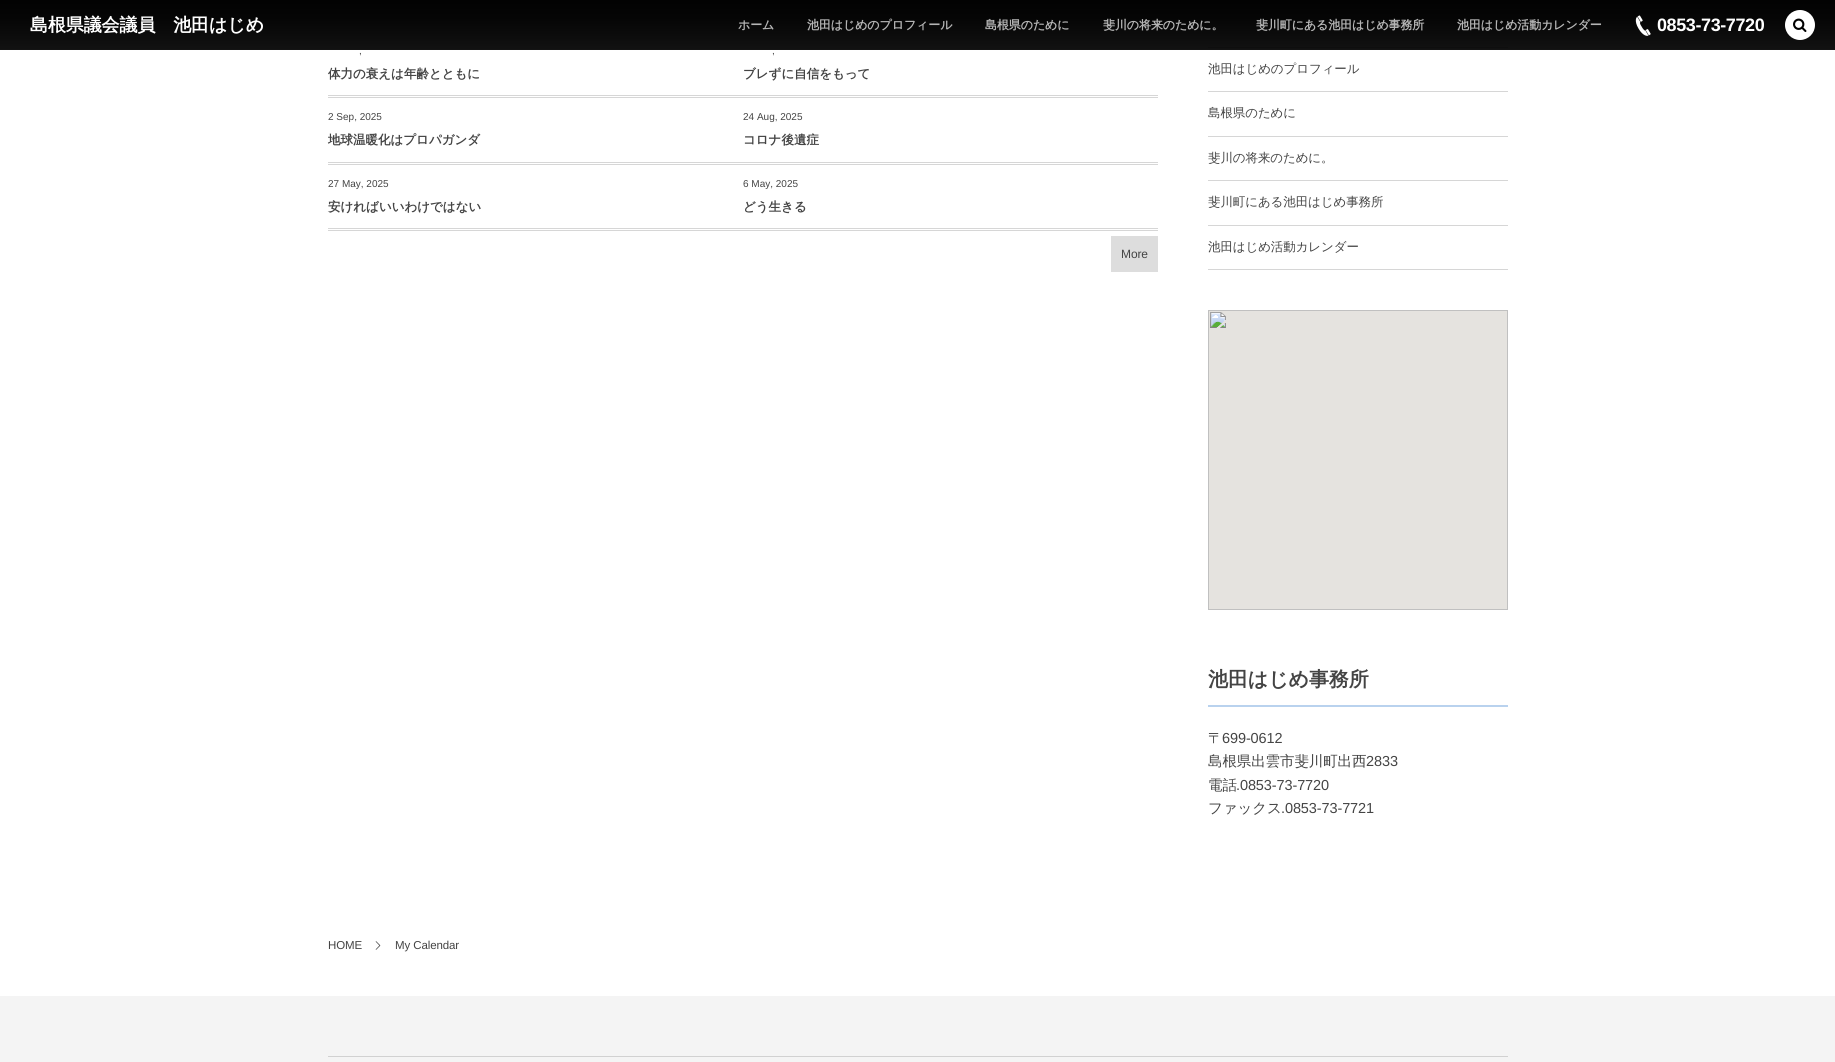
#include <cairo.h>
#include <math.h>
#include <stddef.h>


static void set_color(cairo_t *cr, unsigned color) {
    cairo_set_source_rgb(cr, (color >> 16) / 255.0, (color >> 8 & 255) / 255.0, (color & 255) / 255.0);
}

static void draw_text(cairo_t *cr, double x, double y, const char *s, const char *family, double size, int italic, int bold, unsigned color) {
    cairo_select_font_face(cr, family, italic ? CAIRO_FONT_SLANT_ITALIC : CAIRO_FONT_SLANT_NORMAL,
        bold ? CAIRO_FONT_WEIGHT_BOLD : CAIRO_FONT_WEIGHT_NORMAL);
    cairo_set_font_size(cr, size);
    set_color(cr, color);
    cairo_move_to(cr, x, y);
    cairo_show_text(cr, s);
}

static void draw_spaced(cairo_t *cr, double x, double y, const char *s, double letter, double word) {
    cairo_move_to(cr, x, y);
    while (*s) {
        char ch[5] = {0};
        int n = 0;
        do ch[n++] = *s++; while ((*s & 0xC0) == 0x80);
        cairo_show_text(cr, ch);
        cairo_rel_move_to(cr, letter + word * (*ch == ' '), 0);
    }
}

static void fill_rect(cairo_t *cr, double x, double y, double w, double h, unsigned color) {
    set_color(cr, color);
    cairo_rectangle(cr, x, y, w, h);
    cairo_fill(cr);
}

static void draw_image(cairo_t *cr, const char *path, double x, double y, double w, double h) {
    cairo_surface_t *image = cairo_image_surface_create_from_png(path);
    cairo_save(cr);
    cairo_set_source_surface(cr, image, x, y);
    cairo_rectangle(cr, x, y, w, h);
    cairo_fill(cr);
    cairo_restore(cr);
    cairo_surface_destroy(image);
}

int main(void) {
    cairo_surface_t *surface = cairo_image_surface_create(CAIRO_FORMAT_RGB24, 1835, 1062);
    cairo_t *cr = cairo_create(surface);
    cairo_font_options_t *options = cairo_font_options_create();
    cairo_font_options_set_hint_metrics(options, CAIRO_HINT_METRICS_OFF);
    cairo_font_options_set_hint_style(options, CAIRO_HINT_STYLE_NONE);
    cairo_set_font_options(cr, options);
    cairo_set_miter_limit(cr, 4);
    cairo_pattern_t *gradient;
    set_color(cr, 0xFFFFFF);
    cairo_paint(cr);
    fill_rect(cr, 1208, 47, 300, 1, 0xD6D6D6);
    cairo_set_source_rgba(cr, 0, 0, 0, 0.92);
    cairo_rectangle(cr, 0, 0, 1835, 50);
    cairo_fill(cr);
    gradient = cairo_pattern_create_linear(918, 0, 918, 50);
    cairo_pattern_add_color_stop_rgba(gradient, 0, 0, 0, 0, 0.92);
    cairo_pattern_add_color_stop_rgba(gradient, 0.38, 0, 0, 0, 0.72);
    cairo_pattern_add_color_stop_rgba(gradient, 1, 0, 0, 0, 0.1);
    cairo_set_source(cr, gradient);
    cairo_pattern_destroy(gradient);
    cairo_rectangle(cr, 0, 0, 1835, 49);
    cairo_fill(cr);
    cairo_select_font_face(cr, "WenQuanYi Zen Hei", CAIRO_FONT_SLANT_NORMAL, CAIRO_FONT_WEIGHT_BOLD);
    cairo_set_font_size(cr, 18);
    set_color(cr, 0xFFFFFF);
    draw_spaced(cr, 30, 31, "島根県議会議員　池田はじめ", -0.1, 0);
    cairo_set_font_size(cr, 12);
    set_color(cr, 0xB5B5B5);
    draw_spaced(cr, 738, 29, "ホーム", -0.1, 0);
    draw_spaced(cr, 807, 29, "池田はじめのプロフィール", -0.1, 0);
    draw_spaced(cr, 985, 29, "島根県のために", -0.1, 0);
    draw_spaced(cr, 1103, 29, "斐川の将来のために。", -0.1, 0);
    draw_spaced(cr, 1256, 29, "斐川町にある池田はじめ事務所", -0.1, 0);
    draw_spaced(cr, 1457, 29, "池田はじめ活動カレンダー", -0.1, 0);
    draw_image(cr, "assets/img1.png", 1635, 15, 16, 21);
    cairo_select_font_face(cr, "Liberation Sans", CAIRO_FONT_SLANT_NORMAL, CAIRO_FONT_WEIGHT_BOLD);
    cairo_set_font_size(cr, 18);
    set_color(cr, 0xFFFFFF);
    draw_spaced(cr, 1657, 31, "0853-73-7720", -0.4, 0);
    cairo_new_path(cr);
    cairo_arc(cr, 1800, 25, 15, 0, 2 * M_PI);
    cairo_fill(cr);
    draw_image(cr, "assets/img2.png", 1793, 18, 14, 14);
    fill_rect(cr, 328, 95, 830, 1, 0xD6D6D6);
    fill_rect(cr, 328, 97, 830, 1, 0xD6D6D6);
    draw_text(cr, 359, 54, ",", "Liberation Sans", 10, 0, 0, 0x444444);
    draw_text(cr, 328, 78, "体力の衰えは年齢とともに", "WenQuanYi Zen Hei", 12.5, 0, 1, 0x444444);
    draw_text(cr, 772, 54, ",", "Liberation Sans", 10, 0, 0, 0x444444);
    draw_text(cr, 743, 78, "ブレずに自信をもって", "WenQuanYi Zen Hei", 12.5, 0, 1, 0x444444);
    fill_rect(cr, 328, 162, 830, 1, 0xD6D6D6);
    fill_rect(cr, 328, 164, 830, 1, 0xD6D6D6);
    draw_text(cr, 328, 120, "2 Sep, 2025", "Liberation Sans", 10, 0, 0, 0x444444);
    draw_text(cr, 328, 144, "地球温暖化はプロパガンダ", "WenQuanYi Zen Hei", 12.5, 0, 1, 0x444444);
    draw_text(cr, 743, 120, "24 Aug, 2025", "Liberation Sans", 10, 0, 0, 0x444444);
    draw_text(cr, 743, 144, "コロナ後遺症", "WenQuanYi Zen Hei", 12.5, 0, 1, 0x444444);
    fill_rect(cr, 328, 228, 830, 1, 0xD6D6D6);
    fill_rect(cr, 328, 230, 830, 1, 0xD6D6D6);
    draw_text(cr, 328, 187, "27 May, 2025", "Liberation Sans", 10, 0, 0, 0x444444);
    draw_text(cr, 328, 211, "安ければいいわけではない", "WenQuanYi Zen Hei", 12.5, 0, 1, 0x444444);
    draw_text(cr, 743, 187, "6 May, 2025", "Liberation Sans", 10, 0, 0, 0x444444);
    draw_text(cr, 743, 211, "どう生きる", "WenQuanYi Zen Hei", 12.5, 0, 1, 0x444444);
    fill_rect(cr, 1111, 236, 47, 36, 0xDDDDDD);
    cairo_select_font_face(cr, "Liberation Sans", CAIRO_FONT_SLANT_NORMAL, CAIRO_FONT_WEIGHT_NORMAL);
    cairo_set_font_size(cr, 12);
    set_color(cr, 0x444444);
    draw_spaced(cr, 1121, 258, "More", -0.1, 0);
    fill_rect(cr, 1208, 91, 300, 1, 0xD6D6D6);
    cairo_select_font_face(cr, "WenQuanYi Zen Hei Medium", CAIRO_FONT_SLANT_NORMAL, CAIRO_FONT_WEIGHT_NORMAL);
    cairo_set_font_size(cr, 12.5);
    set_color(cr, 0x444444);
    draw_spaced(cr, 1208, 73, "池田はじめのプロフィール", -0.1, 0);
    fill_rect(cr, 1208, 136, 300, 1, 0xD6D6D6);
    set_color(cr, 0x444444);
    draw_spaced(cr, 1208, 117, "島根県のために", -0.1, 0);
    fill_rect(cr, 1208, 180, 300, 1, 0xD6D6D6);
    set_color(cr, 0x444444);
    draw_spaced(cr, 1208, 162, "斐川の将来のために。", -0.1, 0);
    fill_rect(cr, 1208, 225, 300, 1, 0xD6D6D6);
    set_color(cr, 0x444444);
    draw_spaced(cr, 1208, 206, "斐川町にある池田はじめ事務所", -0.1, 0);
    fill_rect(cr, 1208, 269, 300, 1, 0xD6D6D6);
    set_color(cr, 0x444444);
    draw_spaced(cr, 1208, 251, "池田はじめ活動カレンダー", -0.1, 0);
    draw_image(cr, "assets/img3.png", 1208, 310, 300, 300);
    fill_rect(cr, 1208, 705, 300, 2, 0xB9D2EE);
    cairo_select_font_face(cr, "WenQuanYi Zen Hei", CAIRO_FONT_SLANT_NORMAL, CAIRO_FONT_WEIGHT_BOLD);
    cairo_set_font_size(cr, 20);
    set_color(cr, 0x444444);
    draw_spaced(cr, 1208, 686, "池田はじめ事務所", -0.1, 0);
    cairo_select_font_face(cr, "WenQuanYi Zen Hei Medium", CAIRO_FONT_SLANT_NORMAL, CAIRO_FONT_WEIGHT_NORMAL);
    cairo_set_font_size(cr, 14.5);
    draw_spaced(cr, 1208, 743, "〒", -0.1, 0);
    cairo_select_font_face(cr, "Liberation Sans", CAIRO_FONT_SLANT_NORMAL, CAIRO_FONT_WEIGHT_NORMAL);
    draw_spaced(cr, 1222, 743, "699-0612", -0.1, 0);
    cairo_select_font_face(cr, "WenQuanYi Zen Hei Medium", CAIRO_FONT_SLANT_NORMAL, CAIRO_FONT_WEIGHT_NORMAL);
    draw_spaced(cr, 1208, 766, "島根県出雲市斐川町出西", -0.1, 0);
    cairo_select_font_face(cr, "Liberation Sans", CAIRO_FONT_SLANT_NORMAL, CAIRO_FONT_WEIGHT_NORMAL);
    draw_spaced(cr, 1366, 766, "2833", -0.1, 0);
    cairo_select_font_face(cr, "WenQuanYi Zen Hei Medium", CAIRO_FONT_SLANT_NORMAL, CAIRO_FONT_WEIGHT_NORMAL);
    draw_spaced(cr, 1208, 790, "電話", -0.1, 0);
    cairo_select_font_face(cr, "Liberation Sans", CAIRO_FONT_SLANT_NORMAL, CAIRO_FONT_WEIGHT_NORMAL);
    draw_spaced(cr, 1236, 790, ".0853-73-7720", -0.1, 0);
    cairo_select_font_face(cr, "WenQuanYi Zen Hei Medium", CAIRO_FONT_SLANT_NORMAL, CAIRO_FONT_WEIGHT_NORMAL);
    draw_spaced(cr, 1208, 813, "ファックス", -0.1, 0);
    cairo_select_font_face(cr, "Liberation Sans", CAIRO_FONT_SLANT_NORMAL, CAIRO_FONT_WEIGHT_NORMAL);
    draw_spaced(cr, 1281, 813, ".0853-73-7721", -0.1, 0);
    cairo_set_font_size(cr, 11.5);
    draw_spaced(cr, 328, 949, "HOME", -0.1, 0);
    draw_image(cr, "assets/img4.png", 375, 941, 6, 9);
    draw_spaced(cr, 395, 949, "My Calendar", -0.1, 0);
    fill_rect(cr, 0, 996, 1835, 66, 0xF4F4F4);
    fill_rect(cr, 328, 1056, 1180, 1, 0xD1D1D1);
    cairo_surface_write_to_png(surface, "output.png");
    cairo_font_options_destroy(options);
    cairo_destroy(cr);
    cairo_surface_destroy(surface);
    return 0;
}
